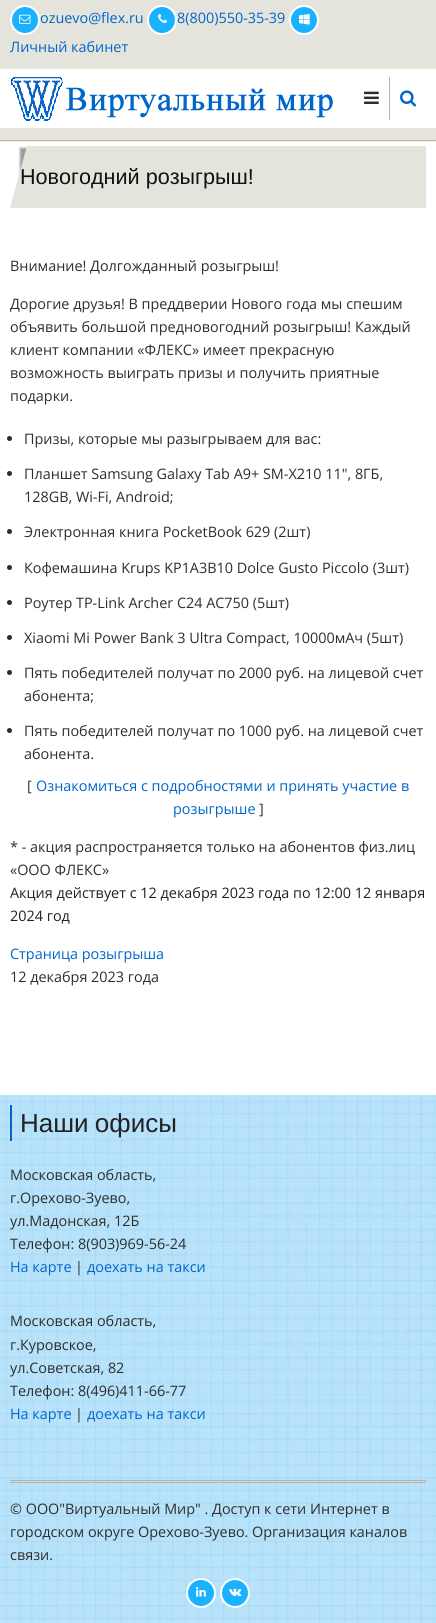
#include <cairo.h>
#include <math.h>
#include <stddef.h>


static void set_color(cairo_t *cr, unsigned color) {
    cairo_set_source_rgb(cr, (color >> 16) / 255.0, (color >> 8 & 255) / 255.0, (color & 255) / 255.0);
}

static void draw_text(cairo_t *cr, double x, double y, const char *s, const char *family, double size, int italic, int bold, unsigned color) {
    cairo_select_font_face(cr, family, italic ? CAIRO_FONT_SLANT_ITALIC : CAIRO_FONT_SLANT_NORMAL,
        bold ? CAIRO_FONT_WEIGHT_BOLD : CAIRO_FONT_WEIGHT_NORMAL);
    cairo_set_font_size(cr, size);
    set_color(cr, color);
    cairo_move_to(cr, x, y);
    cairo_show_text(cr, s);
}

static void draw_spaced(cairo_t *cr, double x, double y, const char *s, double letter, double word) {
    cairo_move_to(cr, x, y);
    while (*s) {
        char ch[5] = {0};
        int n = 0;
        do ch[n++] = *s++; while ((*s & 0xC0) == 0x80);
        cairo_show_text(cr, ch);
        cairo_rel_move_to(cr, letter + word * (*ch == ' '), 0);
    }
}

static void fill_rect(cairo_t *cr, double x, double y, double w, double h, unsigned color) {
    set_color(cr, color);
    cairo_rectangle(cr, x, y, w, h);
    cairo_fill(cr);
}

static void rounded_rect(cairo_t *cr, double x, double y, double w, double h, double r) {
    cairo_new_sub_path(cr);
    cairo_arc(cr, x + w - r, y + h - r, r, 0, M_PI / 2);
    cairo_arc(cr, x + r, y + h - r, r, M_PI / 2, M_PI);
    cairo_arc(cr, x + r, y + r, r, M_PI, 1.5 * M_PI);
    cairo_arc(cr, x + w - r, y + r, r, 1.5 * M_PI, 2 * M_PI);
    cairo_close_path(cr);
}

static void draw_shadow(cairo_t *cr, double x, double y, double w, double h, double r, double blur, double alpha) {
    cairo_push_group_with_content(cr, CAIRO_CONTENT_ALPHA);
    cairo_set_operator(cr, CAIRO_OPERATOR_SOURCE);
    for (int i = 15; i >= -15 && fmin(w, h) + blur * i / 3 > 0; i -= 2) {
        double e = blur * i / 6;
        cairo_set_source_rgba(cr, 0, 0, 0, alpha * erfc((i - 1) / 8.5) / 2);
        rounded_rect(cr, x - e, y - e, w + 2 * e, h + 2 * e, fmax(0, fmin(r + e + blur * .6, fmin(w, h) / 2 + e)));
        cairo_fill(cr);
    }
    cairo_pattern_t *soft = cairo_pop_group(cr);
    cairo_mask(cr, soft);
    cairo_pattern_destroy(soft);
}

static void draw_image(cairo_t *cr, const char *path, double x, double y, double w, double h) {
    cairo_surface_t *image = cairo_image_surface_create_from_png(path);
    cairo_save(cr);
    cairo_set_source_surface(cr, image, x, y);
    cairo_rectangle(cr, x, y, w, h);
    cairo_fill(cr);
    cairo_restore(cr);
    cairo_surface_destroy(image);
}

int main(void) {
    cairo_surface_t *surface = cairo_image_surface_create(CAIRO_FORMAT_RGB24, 436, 1623);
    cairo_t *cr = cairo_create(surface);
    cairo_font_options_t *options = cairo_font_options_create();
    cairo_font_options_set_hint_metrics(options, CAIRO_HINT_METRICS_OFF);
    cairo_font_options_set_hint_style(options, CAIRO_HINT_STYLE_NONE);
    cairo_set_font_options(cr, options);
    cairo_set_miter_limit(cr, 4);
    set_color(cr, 0xFFFFFF);
    cairo_paint(cr);
    fill_rect(cr, 0, 0, 436, 69, 0xE4E4DD);
    set_color(cr, 0x1AB2FF);
    cairo_arc(cr, 25, 20, 14, 0, 2 * M_PI);
    cairo_fill_preserve(cr);
    set_color(cr, 0xFFFFFF);
    cairo_stroke(cr);
    draw_image(cr, "assets/img1.png", 19, 14, 12, 10);
    draw_text(cr, 40, 23, "ozuevo@flex.ru", "Open Sans", 14.4, 0, 0, 0x0066CC);
    set_color(cr, 0x1AB2FF);
    cairo_new_path(cr);
    cairo_arc(cr, 162, 20, 14, 0, 2 * M_PI);
    cairo_fill_preserve(cr);
    set_color(cr, 0xFFFFFF);
    cairo_stroke(cr);
    draw_image(cr, "assets/img2.png", 158, 14, 9, 9);
    draw_text(cr, 177, 23, "8(800)550-35-39", "Open Sans", 14.4, 0, 0, 0x0066CC);
    set_color(cr, 0x1AB2FF);
    cairo_new_path(cr);
    cairo_arc(cr, 304, 20, 14, 0, 2 * M_PI);
    cairo_fill_preserve(cr);
    set_color(cr, 0xFFFFFF);
    cairo_stroke(cr);
    draw_image(cr, "assets/img3.png", 299, 14, 11, 11);
    draw_text(cr, 10, 52, "Личный кабинет", "Open Sans", 14.4, 0, 0, 0x0066CC);
    draw_image(cr, "assets/img4.png", 11, 77, 322, 44);
    draw_image(cr, "assets/img5.png", 364, 91, 15, 13);
    fill_rect(cr, 389, 77, 1, 43, 0xB4B4B4);
    draw_image(cr, "assets/img6.png", 400, 90, 16, 17);
    set_color(cr, 0xB9AD8C);
    draw_shadow(cr, 0, 129, 436, 12, 0, 0.5, 1);
    fill_rect(cr, 0, 128, 436, 12, 0xE4E4DD);
    cairo_save(cr);
    cairo_rectangle(cr, 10, 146, 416, 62);
    cairo_clip(cr);
    set_color(cr, 0x9C9C9C);
    draw_shadow(cr, 20, 148, 416, 62, 0, 1, 1);
    cairo_restore(cr);
    cairo_save(cr);
    cairo_rectangle(cr, 10, 146, 416, 62);
    cairo_clip(cr);
    cairo_new_path(cr);
    cairo_move_to(cr, 27, 146);
    cairo_line_to(cr, 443, 146);
    cairo_line_to(cr, 426, 208);
    cairo_line_to(cr, 10, 208);
    cairo_close_path(cr);
    cairo_fill(cr);
    cairo_restore(cr);
    draw_text(cr, 20, 184, "Новогодний розыгрыш!", "Liberation Sans", 21.6, 0, 0, 0x111111);
    draw_text(cr, 10, 271, "Внимание! Долгожданный розыгрыш!", "Open Sans", 14.4, 0, 0, 0x2E2E2E);
    draw_text(cr, 10, 309, "Дорогие друзья! В преддверии Нового года мы спешим", "Open Sans", 14.4, 0, 0, 0x2E2E2E);
    draw_text(cr, 10, 332, "объявить большой предновогодний розыгрыш! Каждый", "Open Sans", 14.4, 0, 0, 0x2E2E2E);
    draw_text(cr, 10, 355, "клиент компании «ФЛЕКС» имеет прекрасную", "Open Sans", 14.4, 0, 0, 0x2E2E2E);
    draw_text(cr, 10, 378, "возможность выиграть призы и получить приятные", "Open Sans", 14.4, 0, 0, 0x2E2E2E);
    draw_text(cr, 10, 401, "подарки.", "Open Sans", 14.4, 0, 0, 0x2E2E2E);
    cairo_new_path(cr);
    cairo_arc(cr, 9.5, 438.5, 2.5, 0, 2 * M_PI);
    cairo_fill(cr);
    draw_text(cr, 24, 444, "Призы, которые мы разыгрываем для вас:", "Open Sans", 14.4, 0, 0, 0x2E2E2E);
    cairo_new_path(cr);
    cairo_arc(cr, 9.5, 473.5, 2.5, 0, 2 * M_PI);
    cairo_fill(cr);
    draw_text(cr, 24, 479, "Планшет Samsung Galaxy Tab A9+ SM-X210 11\", 8ГБ,", "Open Sans", 14.4, 0, 0, 0x2E2E2E);
    draw_text(cr, 24, 502, "128GB, Wi-Fi, Android;", "Open Sans", 14.4, 0, 0, 0x2E2E2E);
    cairo_new_path(cr);
    cairo_arc(cr, 9.5, 531.5, 2.5, 0, 2 * M_PI);
    cairo_fill(cr);
    draw_text(cr, 24, 537, "Электронная книга PocketBook 629 (2шт)", "Open Sans", 14.4, 0, 0, 0x2E2E2E);
    cairo_new_path(cr);
    cairo_arc(cr, 9.5, 567.5, 2.5, 0, 2 * M_PI);
    cairo_fill(cr);
    draw_text(cr, 24, 573, "Кофемашина Krups KP1A3B10 Dolce Gusto Piccolo (3шт)", "Open Sans", 14.4, 0, 0, 0x2E2E2E);
    cairo_new_path(cr);
    cairo_arc(cr, 9.5, 602.5, 2.5, 0, 2 * M_PI);
    cairo_fill(cr);
    draw_text(cr, 24, 608, "Роутер TP-Link Archer C24 AC750 (5шт)", "Open Sans", 14.4, 0, 0, 0x2E2E2E);
    cairo_new_path(cr);
    cairo_arc(cr, 9.5, 637.5, 2.5, 0, 2 * M_PI);
    cairo_fill(cr);
    draw_text(cr, 24, 643, "Xiaomi Mi Power Bank 3 Ultra Compact, 10000мAч (5шт)", "Open Sans", 14.4, 0, 0, 0x2E2E2E);
    cairo_new_path(cr);
    cairo_arc(cr, 9.5, 672.5, 2.5, 0, 2 * M_PI);
    cairo_fill(cr);
    draw_text(cr, 24, 678, "Пять победителей получат по 2000 руб. на лицевой счет", "Open Sans", 14.4, 0, 0, 0x2E2E2E);
    draw_text(cr, 24, 701, "абонента;", "Open Sans", 14.4, 0, 0, 0x2E2E2E);
    cairo_new_path(cr);
    cairo_arc(cr, 9.5, 730.5, 2.5, 0, 2 * M_PI);
    cairo_fill(cr);
    draw_text(cr, 24, 736, "Пять победителей получат по 1000 руб. на лицевой счет", "Open Sans", 14.4, 0, 0, 0x2E2E2E);
    draw_text(cr, 24, 759, "абонента.", "Open Sans", 14.4, 0, 0, 0x2E2E2E);
    draw_text(cr, 27, 791, "[", "Open Sans", 14.4, 0, 0, 0x2E2E2E);
    draw_text(cr, 36, 791, "Ознакомиться с подробностями и принять участие в", "Open Sans", 14.4, 0, 0, 0x0066CC);
    draw_text(cr, 173, 814, "розыгрыше", "Open Sans", 14.4, 0, 0, 0x0066CC);
    draw_text(cr, 259, 814, "]", "Open Sans", 14.4, 0, 0, 0x2E2E2E);
    draw_text(cr, 10, 852, "* - акция распространяется только на абонентов физ.лиц", "Open Sans", 14.4, 0, 0, 0x2E2E2E);
    draw_text(cr, 10, 875, "«ООО ФЛЕКС»", "Open Sans", 14.4, 0, 0, 0x2E2E2E);
    draw_text(cr, 10, 898, "Акция действует c 12 декабря 2023 года по 12:00 12 января", "Open Sans", 14.4, 0, 0, 0x222222);
    draw_text(cr, 10, 921, "2024 год", "Open Sans", 14.4, 0, 0, 0x222222);
    draw_text(cr, 10, 959, "Страница розыгрыша", "Open Sans", 14.4, 0, 0, 0x0066CC);
    draw_text(cr, 10, 982, "12 декабря 2023 года", "Open Sans", 14.4, 0, 0, 0x2E2E2E);
    fill_rect(cr, 0, 1095, 436, 528, 0x7BD3FF);
    draw_image(cr, "assets/img7.png", 0, 1095, 436, 528);
    fill_rect(cr, 10, 1105, 2, 36, 0x0066CC);
    cairo_select_font_face(cr, "Liberation Sans", CAIRO_FONT_SLANT_NORMAL, CAIRO_FONT_WEIGHT_NORMAL);
    cairo_set_font_size(cr, 26);
    set_color(cr, 0x222222);
    draw_spaced(cr, 20, 1132, "Наши офисы", 0, -1);
    draw_text(cr, 10, 1180, "Московская область,", "Open Sans", 14.4, 0, 0, 0x2E2E2E);
    draw_text(cr, 10, 1203, "г.Орехово-Зуево,", "Open Sans", 14.4, 0, 0, 0x2E2E2E);
    draw_text(cr, 10, 1226, "ул.Мадонская, 12Б", "Open Sans", 14.4, 0, 0, 0x2E2E2E);
    draw_text(cr, 10, 1249, "Телефон: 8(903)969-56-24", "Open Sans", 14.4, 0, 0, 0x2E2E2E);
    draw_text(cr, 10, 1272, "На карте", "Open Sans", 14.4, 0, 0, 0x0066CC);
    draw_text(cr, 75, 1272, "|", "Open Sans", 14.4, 0, 0, 0x2E2E2E);
    draw_text(cr, 87, 1272, "доехать на такси", "Open Sans", 14.4, 0, 0, 0x0066CC);
    draw_text(cr, 10, 1326, "Московская область,", "Open Sans", 14.4, 0, 0, 0x2E2E2E);
    draw_text(cr, 10, 1350, "г.Куровское,", "Open Sans", 14.4, 0, 0, 0x2E2E2E);
    draw_text(cr, 10, 1373, "ул.Советская, 82", "Open Sans", 14.4, 0, 0, 0x2E2E2E);
    draw_text(cr, 10, 1396, "Телефон: 8(496)411-66-77", "Open Sans", 14.4, 0, 0, 0x2E2E2E);
    draw_text(cr, 10, 1419, "На карте", "Open Sans", 14.4, 0, 0, 0x0066CC);
    draw_text(cr, 75, 1419, "|", "Open Sans", 14.4, 0, 0, 0x2E2E2E);
    draw_text(cr, 87, 1419, "доехать на такси", "Open Sans", 14.4, 0, 0, 0x0066CC);
    fill_rect(cr, 10, 1480, 416, 1, 0xBBB0A1);
    fill_rect(cr, 10, 1482, 416, 1, 0xBBB0A1);
    draw_text(cr, 10, 1514, "© ООО\"Виртуальный Мир\" . Доступ к сети Интернет в", "Open Sans", 14.4, 0, 0, 0x2E2E2E);
    draw_text(cr, 10, 1537, "городском округе Орехово-Зуево. Организация каналов", "Open Sans", 14.4, 0, 0, 0x2E2E2E);
    draw_text(cr, 10, 1560, "связи.", "Open Sans", 14.4, 0, 0, 0x2E2E2E);
    set_color(cr, 0x1AB2FF);
    cairo_new_path(cr);
    cairo_arc(cr, 201, 1593, 14, 0, 2 * M_PI);
    cairo_fill_preserve(cr);
    set_color(cr, 0xFFFFFF);
    cairo_stroke(cr);
    draw_image(cr, "assets/img8.png", 196, 1587, 10, 10);
    set_color(cr, 0x1AB2FF);
    cairo_arc(cr, 235, 1593, 14, 0, 2 * M_PI);
    cairo_fill_preserve(cr);
    set_color(cr, 0xFFFFFF);
    cairo_stroke(cr);
    draw_image(cr, "assets/img9.png", 229, 1588, 13, 8);
    cairo_surface_write_to_png(surface, "output.png");
    cairo_font_options_destroy(options);
    cairo_destroy(cr);
    cairo_surface_destroy(surface);
    return 0;
}
